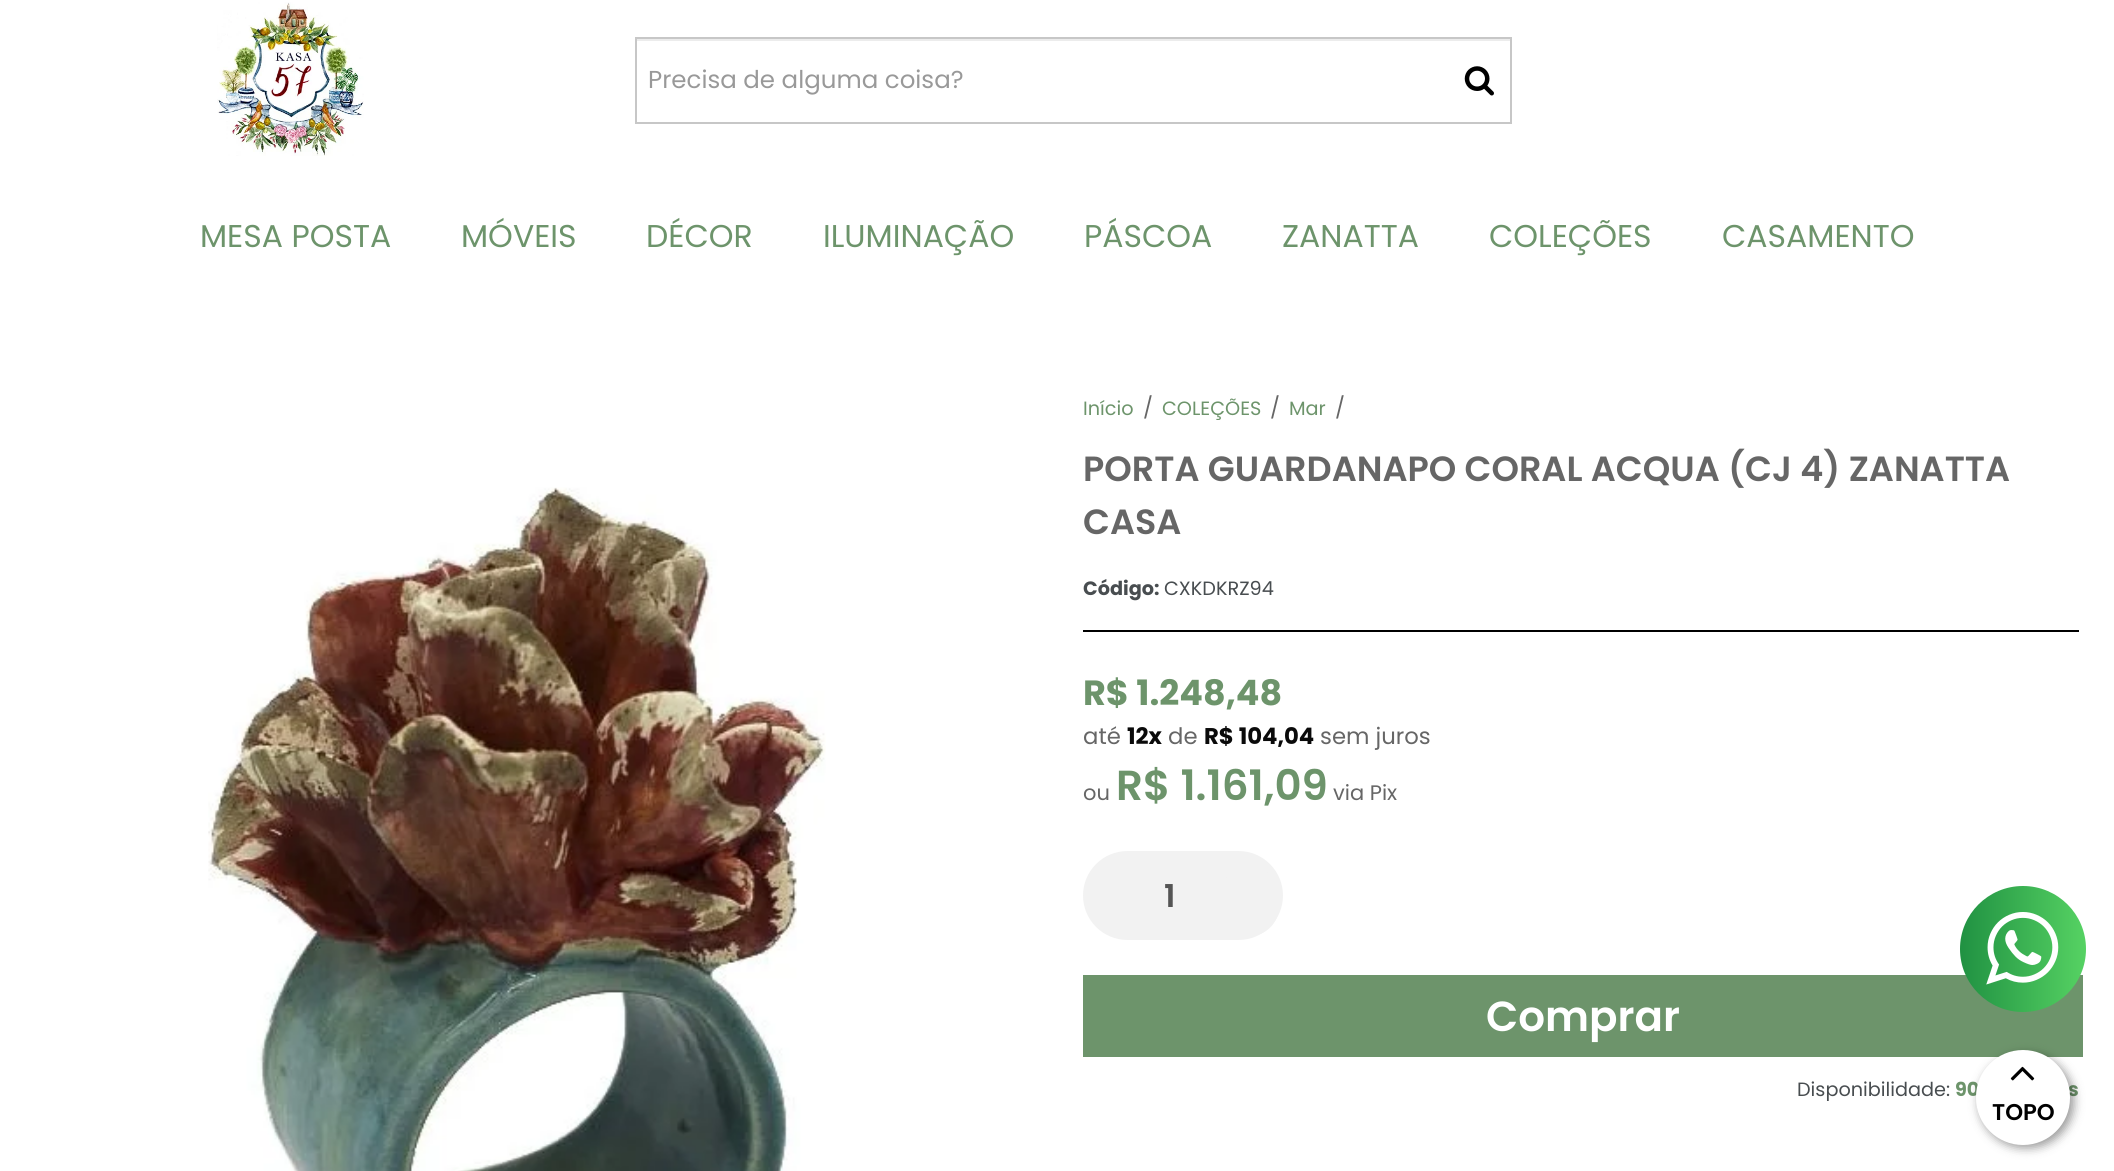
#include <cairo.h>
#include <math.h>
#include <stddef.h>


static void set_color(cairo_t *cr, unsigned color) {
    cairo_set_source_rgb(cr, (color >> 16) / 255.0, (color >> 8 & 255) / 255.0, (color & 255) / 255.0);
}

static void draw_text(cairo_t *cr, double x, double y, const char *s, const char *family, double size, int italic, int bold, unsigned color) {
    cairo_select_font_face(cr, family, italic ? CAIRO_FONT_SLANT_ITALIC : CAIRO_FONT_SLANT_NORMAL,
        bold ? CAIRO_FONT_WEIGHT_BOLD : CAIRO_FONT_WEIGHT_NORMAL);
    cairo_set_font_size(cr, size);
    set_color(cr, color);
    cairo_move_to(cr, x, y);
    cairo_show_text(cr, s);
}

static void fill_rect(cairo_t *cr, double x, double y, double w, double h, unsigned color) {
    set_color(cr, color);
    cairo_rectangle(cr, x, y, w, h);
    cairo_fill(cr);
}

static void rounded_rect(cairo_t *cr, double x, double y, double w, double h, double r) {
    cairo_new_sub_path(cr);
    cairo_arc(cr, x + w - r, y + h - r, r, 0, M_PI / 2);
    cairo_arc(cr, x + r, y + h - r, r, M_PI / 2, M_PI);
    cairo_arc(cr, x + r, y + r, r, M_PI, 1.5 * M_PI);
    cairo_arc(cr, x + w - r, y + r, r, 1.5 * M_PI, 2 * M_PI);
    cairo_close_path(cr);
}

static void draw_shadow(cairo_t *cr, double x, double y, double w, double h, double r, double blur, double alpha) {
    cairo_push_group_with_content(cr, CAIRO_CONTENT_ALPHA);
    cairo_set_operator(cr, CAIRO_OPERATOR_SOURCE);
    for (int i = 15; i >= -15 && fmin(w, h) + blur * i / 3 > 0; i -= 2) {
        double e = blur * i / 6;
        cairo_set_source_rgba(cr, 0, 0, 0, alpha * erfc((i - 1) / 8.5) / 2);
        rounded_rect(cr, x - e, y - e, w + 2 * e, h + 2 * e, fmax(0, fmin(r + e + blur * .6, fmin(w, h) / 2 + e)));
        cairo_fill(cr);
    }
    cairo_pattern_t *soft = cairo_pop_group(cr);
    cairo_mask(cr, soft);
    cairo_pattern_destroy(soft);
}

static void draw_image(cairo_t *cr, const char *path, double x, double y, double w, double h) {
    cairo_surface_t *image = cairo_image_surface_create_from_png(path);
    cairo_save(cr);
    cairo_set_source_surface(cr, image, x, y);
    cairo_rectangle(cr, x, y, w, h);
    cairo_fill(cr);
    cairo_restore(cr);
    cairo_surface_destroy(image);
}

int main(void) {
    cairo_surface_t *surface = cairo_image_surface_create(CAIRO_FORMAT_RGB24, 2114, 1171);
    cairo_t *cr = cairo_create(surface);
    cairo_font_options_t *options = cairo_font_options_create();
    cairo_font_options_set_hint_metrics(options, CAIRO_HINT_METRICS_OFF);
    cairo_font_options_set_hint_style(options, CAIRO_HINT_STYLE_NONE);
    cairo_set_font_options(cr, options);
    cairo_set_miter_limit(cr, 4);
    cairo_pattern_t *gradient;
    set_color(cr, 0xFFFFFF);
    cairo_paint(cr);
    draw_image(cr, "assets/img1.png", 217, 2, 147, 154);
    fill_rect(cr, 637, 39, 873, 2, 0xECECEC);
    cairo_rectangle(cr, 636, 38, 875, 85);
    set_color(cr, 0xC7C7C7);
    cairo_stroke(cr);
    draw_text(cr, 648, 88, "Precisa de alguma coisa?", "Poppins", 24.5, 0, 0, 0x999999);
    draw_image(cr, "assets/img2.png", 1464, 66, 30, 30);
    draw_text(cr, 200, 247, "MESA POSTA", "Poppins", 31.5, 0, 0, 0x6D946B);
    draw_text(cr, 461, 247, "MÓVEIS", "Poppins", 31.5, 0, 0, 0x6D946B);
    draw_text(cr, 646, 247, "DÉCOR", "Poppins", 31.5, 0, 0, 0x6D946B);
    draw_text(cr, 823, 247, "ILUMINAÇÃO", "Poppins", 31.5, 0, 0, 0x6D946B);
    draw_text(cr, 1084, 247, "PÁSCOA", "Poppins", 31.5, 0, 0, 0x6D946B);
    draw_text(cr, 1282, 247, "ZANATTA", "Poppins", 31.5, 0, 0, 0x6D946B);
    draw_text(cr, 1489, 247, "COLEÇÕES", "Poppins", 31.5, 0, 0, 0x6D946B);
    draw_text(cr, 1722, 247, "CASAMENTO", "Poppins", 31.5, 0, 0, 0x6D946B);
    draw_image(cr, "assets/img3.png", 208, 487, 618, 684);
    draw_text(cr, 1083, 415, "Início", "Poppins", 19.25, 0, 0, 0x6D946B);
    draw_text(cr, 1143, 415, "/", "Poppins", 21, 0, 0, 0x666666);
    draw_text(cr, 1162, 415, "COLEÇÕES", "Poppins", 19.25, 0, 0, 0x6D946B);
    draw_text(cr, 1270, 415, "/", "Poppins", 21, 0, 0, 0x666666);
    draw_text(cr, 1289, 415, "Mar", "Poppins", 19.25, 0, 0, 0x6D946B);
    draw_text(cr, 1335, 415, "/", "Poppins", 21, 0, 0, 0x666666);
    draw_text(cr, 1083, 481, "PORTA GUARDANAPO CORAL ACQUA (CJ 4) ZANATTA", "Poppins SemiBold", 35, 0, 0, 0x666666);
    draw_text(cr, 1083, 534, "CASA", "Poppins SemiBold", 35, 0, 0, 0x666666);
    fill_rect(cr, 1083, 630, 996, 2, 0x000000);
    draw_text(cr, 1083, 595, "Código:", "Poppins", 19.25, 0, 1, 0x484D50);
    draw_text(cr, 1164, 595, "CXKDKRZ94", "Poppins", 19.25, 0, 0, 0x484D50);
    draw_text(cr, 1083, 705, "R$ 1.248,48", "Poppins", 35, 0, 1, 0x6D946B);
    draw_text(cr, 1083, 744, "até", "Poppins", 22.75, 0, 0, 0x666666);
    draw_text(cr, 1127, 744, "12x", "Poppins", 22.75, 0, 1, 0x0A0A0A);
    draw_text(cr, 1168, 744, "de", "Poppins", 22.75, 0, 0, 0x666666);
    draw_text(cr, 1204, 744, "R$ 104,04", "Poppins", 22.75, 0, 1, 0x0A0A0A);
    draw_text(cr, 1320, 744, "sem juros", "Poppins", 22.75, 0, 0, 0x666666);
    draw_text(cr, 1083, 800, "ou", "Poppins", 21, 0, 0, 0x666666);
    draw_text(cr, 1116, 800, "R$ 1.161,09", "Poppins SemiBold", 42, 0, 0, 0x6D946B);
    draw_text(cr, 1333, 800, "via Pix", "Poppins", 21, 0, 0, 0x666666);
    set_color(cr, 0xF2F2F2);
    rounded_rect(cr, 1083, 851, 200, 89, 44.5);
    cairo_fill(cr);
    draw_text(cr, 1164, 907, "1", "Poppins SemiBold", 31.5, 0, 0, 0x555555);
    set_color(cr, 0xF2F2F2);
    rounded_rect(cr, 1220, 866, 59, 70, 29.5);
    cairo_fill(cr);
    fill_rect(cr, 1083, 975, 1000, 82, 0x6D946B);
    draw_text(cr, 1486, 1031, "Comprar", "Poppins SemiBold", 42, 0, 0, 0xFFFFFF);
    draw_text(cr, 1797, 1096, "Disponibilidade:", "Poppins", 19.25, 0, 0, 0x484D50);
    draw_text(cr, 1955, 1096, "90", "Poppins", 19.25, 0, 1, 0x6D946B);
    draw_text(cr, 2068, 1096, "s", "Poppins", 19.25, 0, 1, 0x6D946B);
    gradient = cairo_pattern_create_linear(1960, 949, 2086, 949);
    cairo_pattern_add_color_stop_rgba(gradient, 0, 0.125, 0.569, 0.259, 1);
    cairo_pattern_add_color_stop_rgba(gradient, 1, 0.337, 0.824, 0.388, 1);
    cairo_set_source(cr, gradient);
    cairo_pattern_destroy(gradient);
    cairo_new_path(cr);
    cairo_arc(cr, 2023, 949, 63, 0, 2 * M_PI);
    cairo_fill(cr);
    draw_image(cr, "assets/img4.png", 1986, 912, 73, 73);
    set_color(cr, 0x000000);
    draw_shadow(cr, 1979, 1054, 95, 94, 47, 5, 0.4);
    set_color(cr, 0xFFFFFF);
    rounded_rect(cr, 1976, 1050, 94, 95, 47);
    cairo_fill(cr);
    draw_image(cr, "assets/img5.png", 2010, 1066, 25, 15);
    draw_text(cr, 1992, 1120, "TOPO", "Poppins SemiBold", 22.75, 0, 0, 0x000000);
    cairo_surface_write_to_png(surface, "output.png");
    cairo_font_options_destroy(options);
    cairo_destroy(cr);
    cairo_surface_destroy(surface);
    return 0;
}
